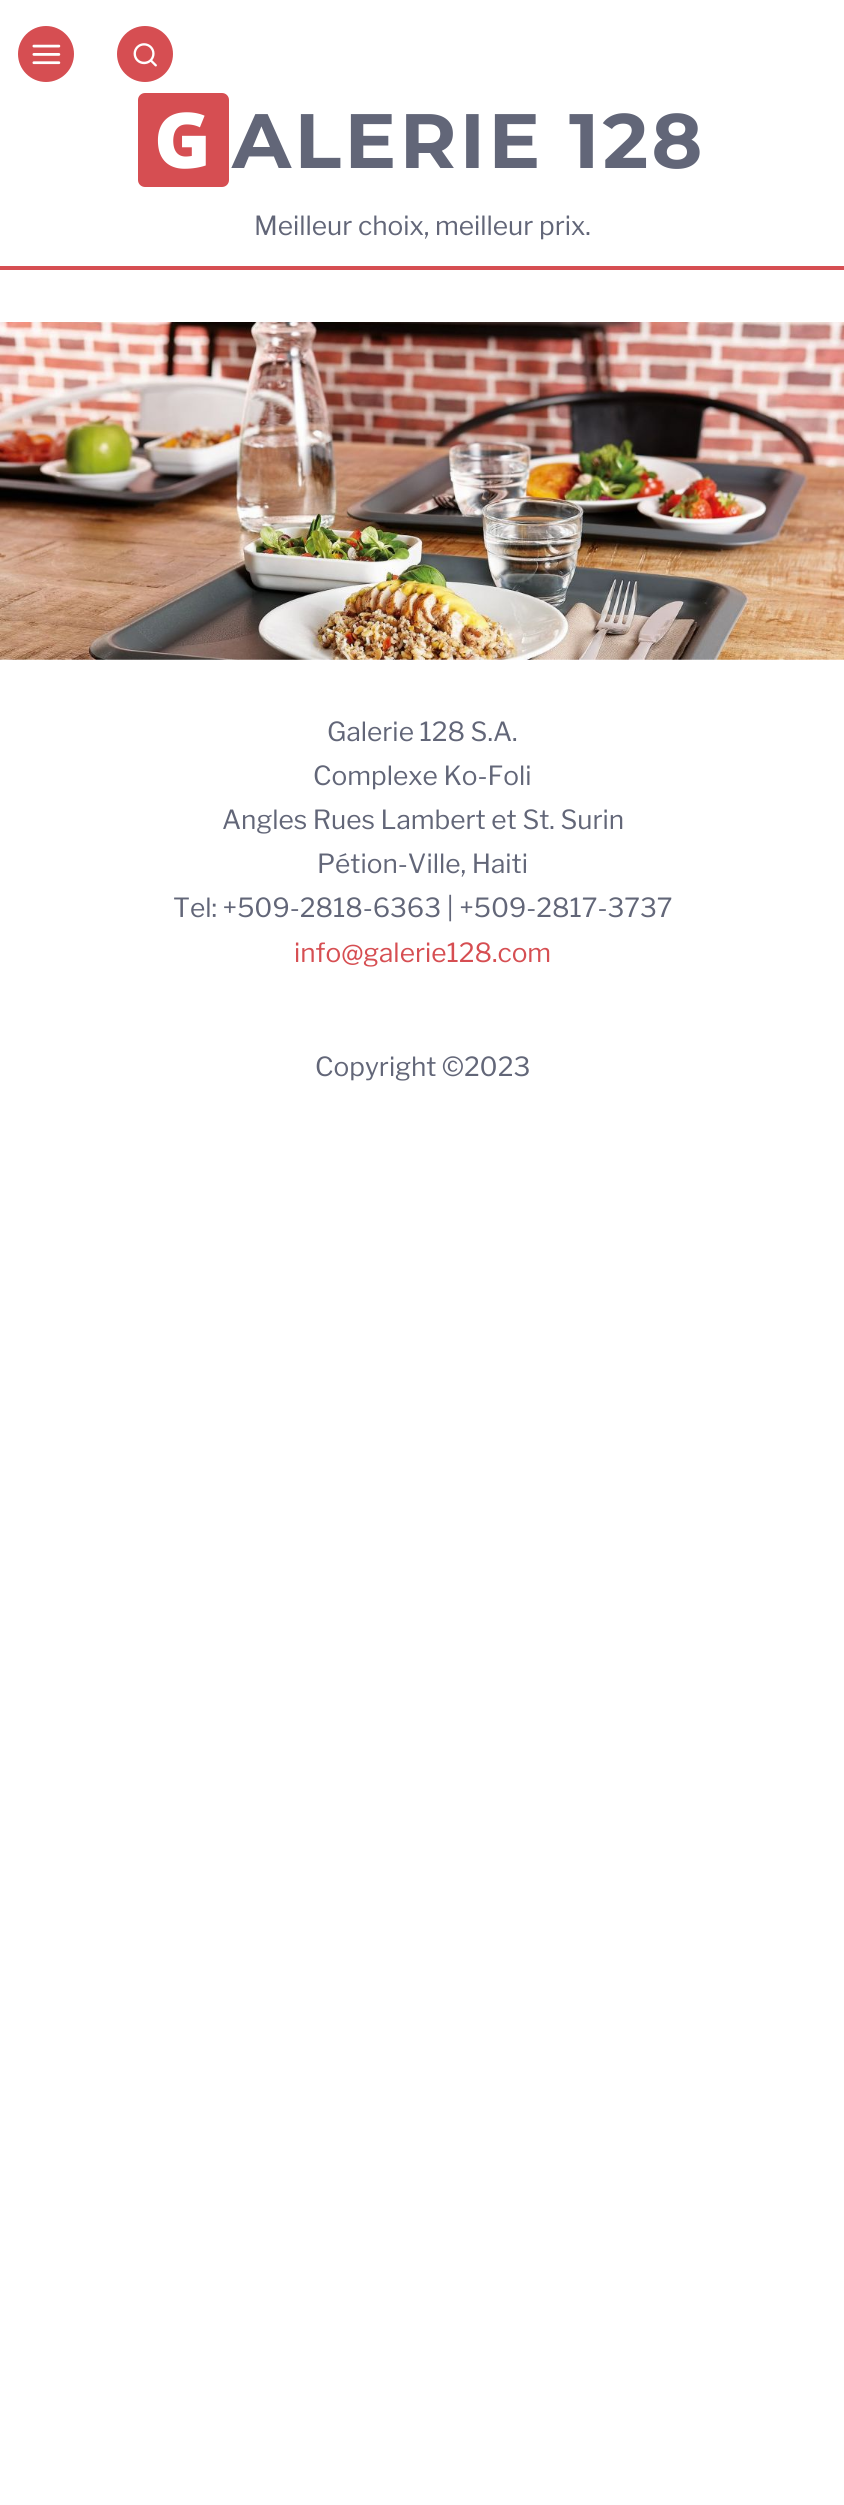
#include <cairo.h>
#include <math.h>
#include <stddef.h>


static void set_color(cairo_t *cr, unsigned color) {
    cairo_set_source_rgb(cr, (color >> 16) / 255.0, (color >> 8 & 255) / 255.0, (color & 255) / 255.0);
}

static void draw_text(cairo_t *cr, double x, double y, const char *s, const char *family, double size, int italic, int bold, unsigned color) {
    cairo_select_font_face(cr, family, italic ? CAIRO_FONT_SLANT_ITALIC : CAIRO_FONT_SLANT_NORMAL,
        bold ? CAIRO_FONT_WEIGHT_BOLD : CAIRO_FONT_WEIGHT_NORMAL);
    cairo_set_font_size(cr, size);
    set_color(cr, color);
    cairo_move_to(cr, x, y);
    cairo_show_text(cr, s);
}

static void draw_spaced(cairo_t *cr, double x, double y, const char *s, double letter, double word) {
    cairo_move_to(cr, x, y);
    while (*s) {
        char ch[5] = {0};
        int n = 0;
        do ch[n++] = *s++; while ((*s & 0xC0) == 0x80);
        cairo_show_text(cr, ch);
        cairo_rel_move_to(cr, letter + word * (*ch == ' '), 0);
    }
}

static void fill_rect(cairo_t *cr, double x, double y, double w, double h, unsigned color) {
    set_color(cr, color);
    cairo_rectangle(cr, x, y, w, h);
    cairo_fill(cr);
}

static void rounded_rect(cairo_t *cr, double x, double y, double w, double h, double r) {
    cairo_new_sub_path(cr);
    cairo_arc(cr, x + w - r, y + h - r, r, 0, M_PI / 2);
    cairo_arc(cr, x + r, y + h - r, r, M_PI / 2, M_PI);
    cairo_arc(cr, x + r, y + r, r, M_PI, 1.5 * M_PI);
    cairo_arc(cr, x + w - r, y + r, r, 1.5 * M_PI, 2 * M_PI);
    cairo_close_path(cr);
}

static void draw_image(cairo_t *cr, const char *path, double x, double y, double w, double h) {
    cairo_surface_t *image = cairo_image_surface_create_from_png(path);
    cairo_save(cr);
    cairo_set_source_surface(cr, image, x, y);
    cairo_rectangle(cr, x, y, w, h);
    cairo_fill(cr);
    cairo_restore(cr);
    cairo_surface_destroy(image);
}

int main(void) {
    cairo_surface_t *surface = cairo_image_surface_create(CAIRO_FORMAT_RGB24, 844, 2505);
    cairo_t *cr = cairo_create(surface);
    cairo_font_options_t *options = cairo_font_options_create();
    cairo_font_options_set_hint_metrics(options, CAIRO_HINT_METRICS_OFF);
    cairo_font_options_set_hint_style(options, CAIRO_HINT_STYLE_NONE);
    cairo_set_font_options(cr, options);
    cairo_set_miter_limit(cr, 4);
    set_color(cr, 0xFFFFFF);
    cairo_paint(cr);
    fill_rect(cr, 0, 266, 844, 4, 0xD64E52);
    cairo_arc(cr, 46, 54, 28, 0, 2 * M_PI);
    cairo_fill(cr);
    draw_image(cr, "assets/img1.png", 32, 44, 29, 21);
    cairo_arc(cr, 145, 54, 28, 0, 2 * M_PI);
    cairo_fill(cr);
    draw_image(cr, "assets/img2.png", 133, 43, 24, 24);
    rounded_rect(cr, 138, 93, 91, 94, 7);
    cairo_fill(cr);
    draw_text(cr, 154, 168, "G", "Noto Sans Black", 77, 0, 0, 0xFFFFFF);
    cairo_select_font_face(cr, "Montserrat", CAIRO_FONT_SLANT_NORMAL, CAIRO_FONT_WEIGHT_BOLD);
    set_color(cr, 0x626678);
    draw_spaced(cr, 232, 168, "ALERIE 128", 3.5, 0);
    draw_text(cr, 254, 235, "Meilleur choix, meilleur prix.", "Libre Franklin", 26.25, 0, 0, 0x626678);
    draw_image(cr, "assets/img3.png", 0, 322, 844, 338);
    draw_text(cr, 327, 741, "Galerie 128 S.A.", "Libre Franklin", 26.25, 0, 0, 0x626678);
    draw_text(cr, 313, 785, "Complexe Ko-Foli", "Libre Franklin", 26.25, 0, 0, 0x626678);
    draw_text(cr, 222, 829, "Angles Rues Lambert et St. Surin", "Libre Franklin", 26.25, 0, 0, 0x626678);
    draw_text(cr, 317, 873, "Pétion-Ville, Haiti", "Libre Franklin", 26.25, 0, 0, 0x626678);
    draw_text(cr, 173, 917, "Tel: +509-2818-6363 | +509-2817-3737", "Libre Franklin", 26.25, 0, 0, 0x626678);
    draw_text(cr, 294, 962, "info@galerie128.com", "Libre Franklin", 26.25, 0, 0, 0xD64E52);
    draw_text(cr, 315, 1076, "Copyright ©2023", "Libre Franklin", 26.25, 0, 0, 0x626678);
    cairo_surface_write_to_png(surface, "output.png");
    cairo_font_options_destroy(options);
    cairo_destroy(cr);
    cairo_surface_destroy(surface);
    return 0;
}
